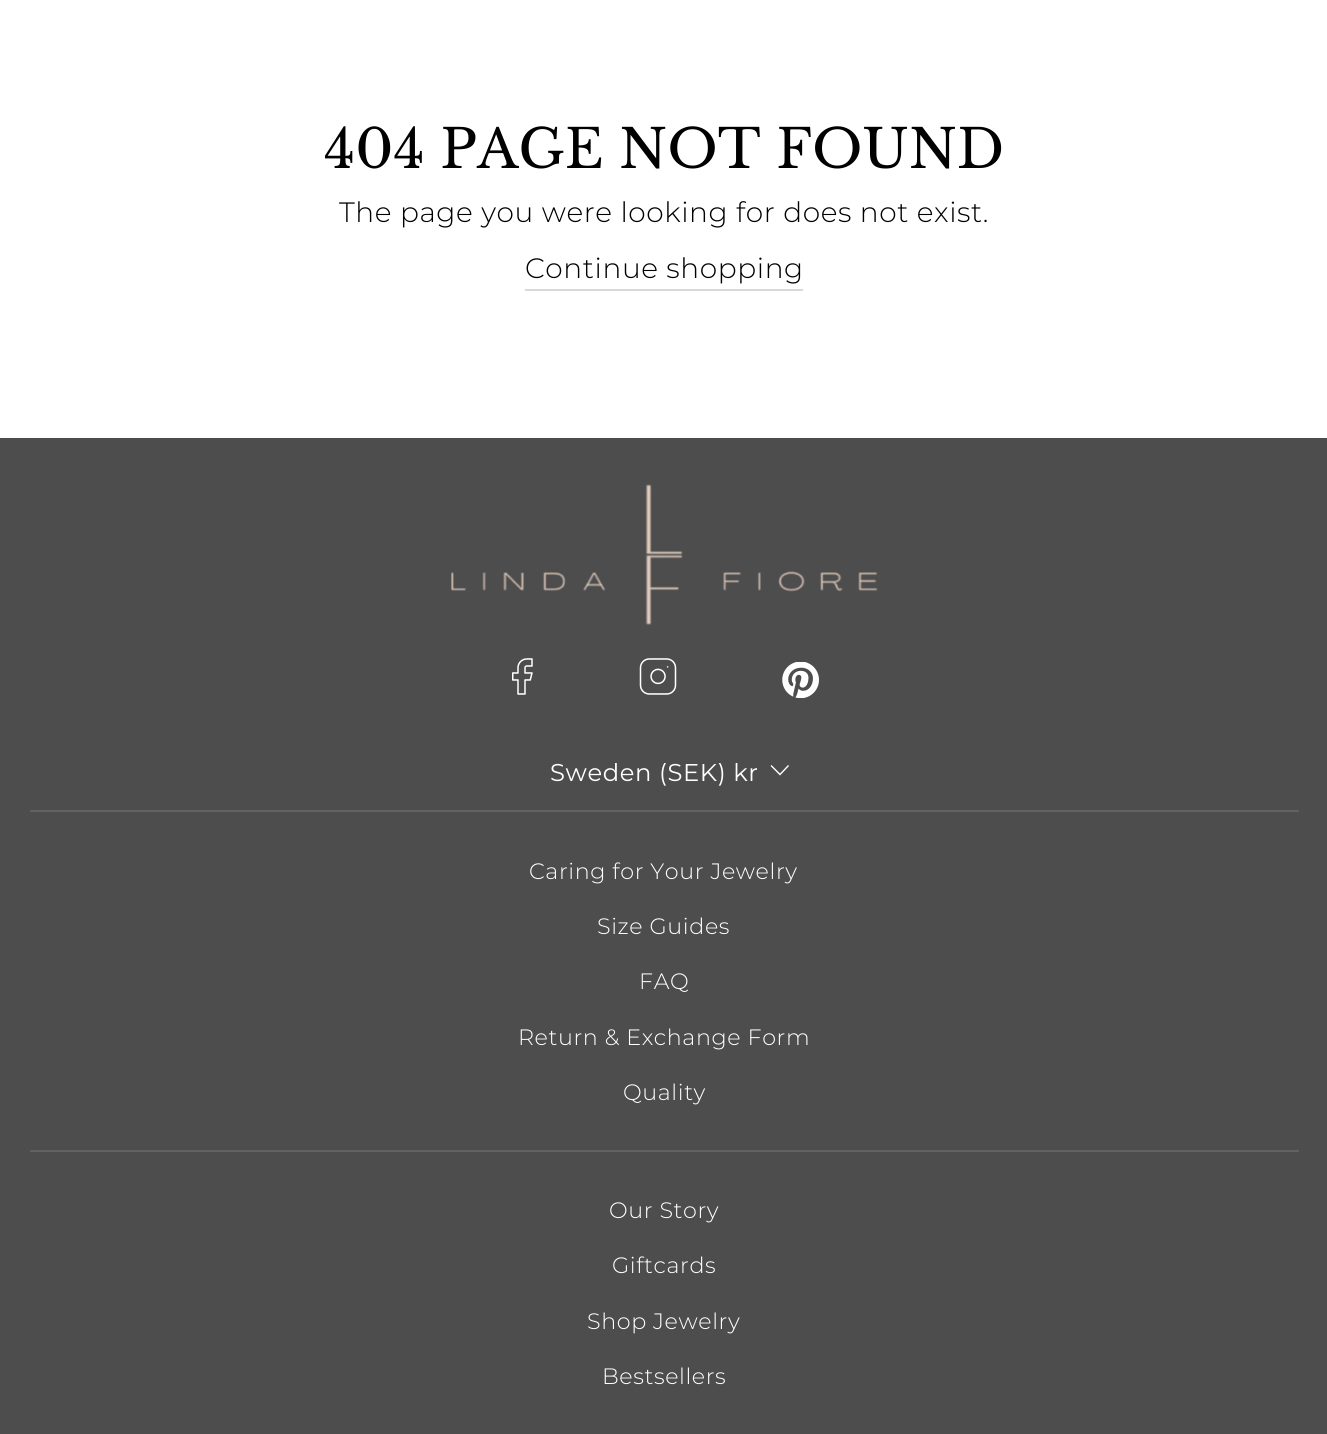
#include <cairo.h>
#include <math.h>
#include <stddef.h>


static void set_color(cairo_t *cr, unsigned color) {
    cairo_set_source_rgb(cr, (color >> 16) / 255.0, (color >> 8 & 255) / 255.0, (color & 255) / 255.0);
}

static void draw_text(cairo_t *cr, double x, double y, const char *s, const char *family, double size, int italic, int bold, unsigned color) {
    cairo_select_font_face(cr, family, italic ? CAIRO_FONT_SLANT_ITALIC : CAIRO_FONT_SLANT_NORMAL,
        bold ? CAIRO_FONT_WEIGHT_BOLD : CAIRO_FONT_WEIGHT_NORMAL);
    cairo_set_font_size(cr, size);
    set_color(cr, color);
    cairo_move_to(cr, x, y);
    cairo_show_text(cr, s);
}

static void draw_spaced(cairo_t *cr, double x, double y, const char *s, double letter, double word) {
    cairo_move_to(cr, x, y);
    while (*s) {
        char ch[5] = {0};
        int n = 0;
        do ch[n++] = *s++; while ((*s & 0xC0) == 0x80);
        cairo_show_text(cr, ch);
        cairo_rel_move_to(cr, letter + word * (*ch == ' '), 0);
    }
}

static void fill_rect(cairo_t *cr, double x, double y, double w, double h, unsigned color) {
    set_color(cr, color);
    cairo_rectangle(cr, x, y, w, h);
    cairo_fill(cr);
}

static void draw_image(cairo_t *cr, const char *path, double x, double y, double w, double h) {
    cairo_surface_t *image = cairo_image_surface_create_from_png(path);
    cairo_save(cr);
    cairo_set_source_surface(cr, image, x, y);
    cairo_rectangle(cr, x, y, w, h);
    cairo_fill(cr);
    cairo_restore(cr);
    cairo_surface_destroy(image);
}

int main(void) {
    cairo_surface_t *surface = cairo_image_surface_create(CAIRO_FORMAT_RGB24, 1327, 1434);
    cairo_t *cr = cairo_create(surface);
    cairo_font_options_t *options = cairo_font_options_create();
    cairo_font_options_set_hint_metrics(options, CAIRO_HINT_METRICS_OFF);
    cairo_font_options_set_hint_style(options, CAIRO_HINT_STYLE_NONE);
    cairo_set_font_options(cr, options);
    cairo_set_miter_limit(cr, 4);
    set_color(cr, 0xFFFFFF);
    cairo_paint(cr);
    draw_text(cr, 324, 168, "404 PAGE NOT FOUND", "Libre Baskerville", 53.5, 0, 0, 0x000000);
    cairo_select_font_face(cr, "Montserrat Light", CAIRO_FONT_SLANT_NORMAL, CAIRO_FONT_WEIGHT_NORMAL);
    cairo_set_font_size(cr, 28);
    draw_spaced(cr, 339, 222, "The page you were looking for does not exist.", 0.6, 0);
    fill_rect(cr, 525, 289, 278, 2, 0xD9D9D9);
    set_color(cr, 0x000000);
    draw_spaced(cr, 525, 278, "Continue shopping", 0.6, 0);
    fill_rect(cr, 0, 438, 1327, 996, 0x4D4D4D);
    draw_image(cr, "assets/img1.png", 451, 484, 427, 141);
    draw_image(cr, "assets/img2.png", 512, 658, 21, 37);
    draw_image(cr, "assets/img3.png", 639, 658, 38, 37);
    draw_image(cr, "assets/img4.png", 782, 662, 37, 36);
    cairo_select_font_face(cr, "Montserrat Thin", CAIRO_FONT_SLANT_NORMAL, CAIRO_FONT_WEIGHT_NORMAL);
    cairo_set_font_size(cr, 24.25);
    set_color(cr, 0xFFFFFF);
    draw_spaced(cr, 550, 781, "Sweden (SEK) kr", 0.6, 0);
    cairo_new_path(cr);
    cairo_move_to(cr, 771, 765.5);
    cairo_line_to(cr, 780, 774.5);
    cairo_line_to(cr, 788.5, 765.5);
    cairo_set_line_width(cr, 1.4);
    cairo_stroke(cr);
    fill_rect(cr, 30, 810, 1269, 2, 0x626262);
    cairo_select_font_face(cr, "Montserrat Light", CAIRO_FONT_SLANT_NORMAL, CAIRO_FONT_WEIGHT_NORMAL);
    cairo_set_font_size(cr, 22.25);
    set_color(cr, 0xFFFFFF);
    draw_spaced(cr, 529, 879, "Caring for Your Jewelry", 0.6, 0);
    draw_spaced(cr, 597, 934, "Size Guides", 0.6, 0);
    draw_spaced(cr, 639, 989, "FAQ", 0.6, 0);
    draw_spaced(cr, 518, 1045, "Return & Exchange Form", 0.6, 0);
    draw_spaced(cr, 623, 1100, "Quality", 0.6, 0);
    fill_rect(cr, 30, 1150, 1269, 2, 0x626262);
    set_color(cr, 0xFFFFFF);
    draw_spaced(cr, 609, 1218, "Our Story", 0.6, 0);
    draw_spaced(cr, 612, 1273, "Giftcards", 0.6, 0);
    draw_spaced(cr, 587, 1329, "Shop Jewelry", 0.6, 0);
    draw_spaced(cr, 602, 1384, "Bestsellers", 0.6, 0);
    cairo_surface_write_to_png(surface, "output.png");
    cairo_font_options_destroy(options);
    cairo_destroy(cr);
    cairo_surface_destroy(surface);
    return 0;
}
